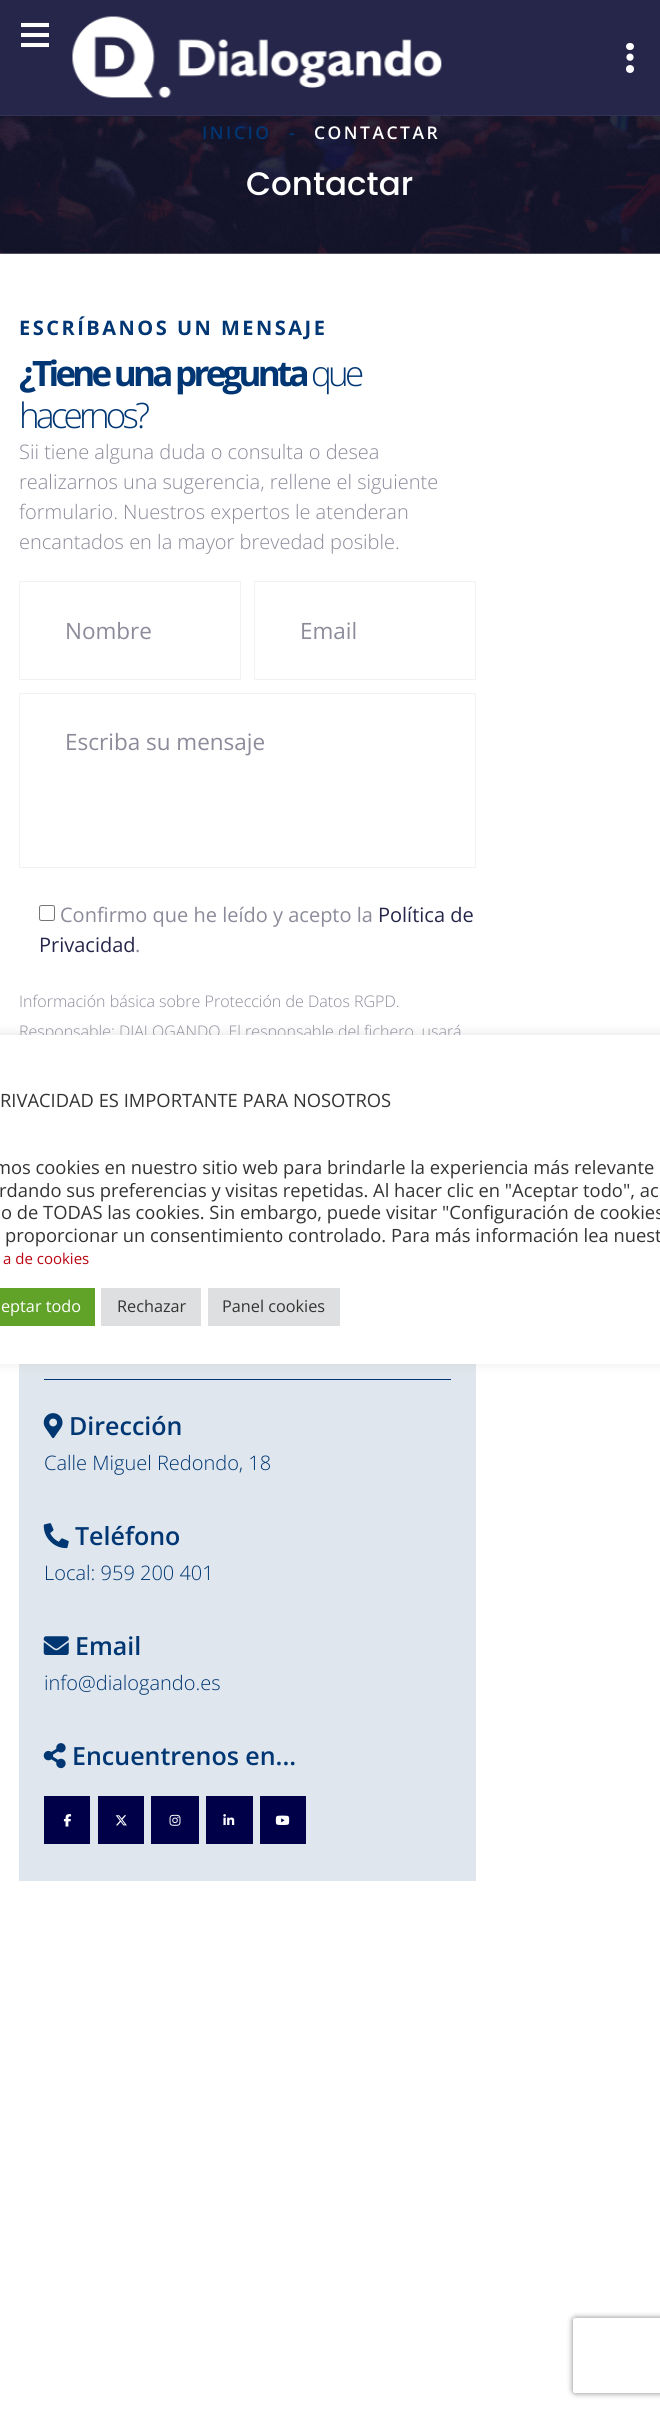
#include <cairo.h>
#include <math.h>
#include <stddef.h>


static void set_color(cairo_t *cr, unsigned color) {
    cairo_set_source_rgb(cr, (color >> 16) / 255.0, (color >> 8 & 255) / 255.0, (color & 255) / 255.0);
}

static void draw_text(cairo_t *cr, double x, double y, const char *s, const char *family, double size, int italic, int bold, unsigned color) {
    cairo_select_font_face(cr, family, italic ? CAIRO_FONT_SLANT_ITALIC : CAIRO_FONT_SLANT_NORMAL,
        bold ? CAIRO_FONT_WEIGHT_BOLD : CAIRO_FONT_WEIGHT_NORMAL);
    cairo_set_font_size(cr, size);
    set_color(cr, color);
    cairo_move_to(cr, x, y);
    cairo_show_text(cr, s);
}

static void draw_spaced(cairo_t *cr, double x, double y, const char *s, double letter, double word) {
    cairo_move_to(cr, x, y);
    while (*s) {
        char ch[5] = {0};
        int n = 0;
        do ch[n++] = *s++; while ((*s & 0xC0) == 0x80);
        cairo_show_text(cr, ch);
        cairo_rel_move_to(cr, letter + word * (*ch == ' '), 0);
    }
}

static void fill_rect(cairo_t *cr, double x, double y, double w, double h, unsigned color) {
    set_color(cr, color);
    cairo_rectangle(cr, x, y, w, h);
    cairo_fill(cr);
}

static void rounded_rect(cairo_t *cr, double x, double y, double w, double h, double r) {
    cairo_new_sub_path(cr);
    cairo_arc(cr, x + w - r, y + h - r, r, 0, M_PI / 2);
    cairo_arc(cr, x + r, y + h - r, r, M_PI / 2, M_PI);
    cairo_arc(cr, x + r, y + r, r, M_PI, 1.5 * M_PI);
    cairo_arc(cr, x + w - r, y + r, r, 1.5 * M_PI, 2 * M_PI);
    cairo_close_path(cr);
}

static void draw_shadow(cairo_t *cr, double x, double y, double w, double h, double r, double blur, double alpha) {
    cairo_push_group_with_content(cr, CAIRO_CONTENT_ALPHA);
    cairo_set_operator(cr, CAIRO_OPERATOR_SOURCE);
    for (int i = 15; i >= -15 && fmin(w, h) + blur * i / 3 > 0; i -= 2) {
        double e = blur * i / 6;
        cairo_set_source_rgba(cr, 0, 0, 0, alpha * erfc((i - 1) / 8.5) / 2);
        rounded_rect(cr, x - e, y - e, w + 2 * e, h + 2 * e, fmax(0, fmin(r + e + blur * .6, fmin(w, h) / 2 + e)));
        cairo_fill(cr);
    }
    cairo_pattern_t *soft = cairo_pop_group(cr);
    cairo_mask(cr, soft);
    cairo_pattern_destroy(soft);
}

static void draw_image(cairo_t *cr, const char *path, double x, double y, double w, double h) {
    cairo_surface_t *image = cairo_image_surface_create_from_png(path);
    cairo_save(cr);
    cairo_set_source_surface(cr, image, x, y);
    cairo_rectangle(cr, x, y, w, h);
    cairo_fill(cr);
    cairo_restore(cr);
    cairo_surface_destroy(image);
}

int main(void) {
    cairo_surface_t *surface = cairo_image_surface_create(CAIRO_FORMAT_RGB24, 660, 2410);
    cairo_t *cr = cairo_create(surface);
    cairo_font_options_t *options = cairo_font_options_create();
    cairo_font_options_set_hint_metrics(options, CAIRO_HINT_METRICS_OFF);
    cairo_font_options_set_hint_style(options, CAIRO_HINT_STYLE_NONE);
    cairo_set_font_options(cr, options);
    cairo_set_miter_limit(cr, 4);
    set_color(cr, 0xFFFFFF);
    cairo_paint(cr);
    fill_rect(cr, 0, 0, 660, 115, 0x26264B);
    fill_rect(cr, 0, 115, 660, 1, 0x313154);
    draw_image(cr, "assets/img1.png", 21, 22, 28, 26);
    draw_image(cr, "assets/img2.png", 72, 16, 370, 82);
    set_color(cr, 0xFFFFFF);
    rounded_rect(cr, 626, 43, 8, 7, 3.5);
    cairo_fill(cr);
    draw_image(cr, "assets/img3.png", 626, 53, 8, 8);
    cairo_arc(cr, 630, 69, 4, 0, 2 * M_PI);
    cairo_fill(cr);
    draw_image(cr, "assets/img4.png", 0, 116, 660, 138);
    cairo_select_font_face(cr, "Open Sans SemiBold", CAIRO_FONT_SLANT_NORMAL, CAIRO_FONT_WEIGHT_NORMAL);
    cairo_set_font_size(cr, 17.5);
    set_color(cr, 0x003673);
    draw_spaced(cr, 202, 139, "INICIO", 2.5, 0);
    draw_spaced(cr, 289, 139, "-", 2.5, 0);
    set_color(cr, 0xFFFFFF);
    draw_spaced(cr, 314, 139, "CONTACTAR", 2.5, 0);
    draw_text(cr, 246, 195, "Contactar", "Poppins Medium", 32.5, 0, 0, 0xFFFFFF);
    cairo_select_font_face(cr, "Open Sans", CAIRO_FONT_SLANT_NORMAL, CAIRO_FONT_WEIGHT_BOLD);
    cairo_set_font_size(cr, 20);
    set_color(cr, 0x003673);
    draw_spaced(cr, 19, 335, "ESCRÍBANOS UN MENSAJE", 2.5, 0);
    cairo_set_font_size(cr, 35);
    draw_spaced(cr, 19, 386, "¿Tiene una pregunta", -3.75, 0);
    cairo_select_font_face(cr, "Open Sans Light", CAIRO_FONT_SLANT_NORMAL, CAIRO_FONT_WEIGHT_NORMAL);
    draw_spaced(cr, 311, 386, "que", -3.75, 0);
    draw_spaced(cr, 19, 428, "hacernos?", -3.75, 0);
    draw_text(cr, 19, 459, "Sii tiene alguna duda o consulta o desea", "Open Sans Light", 20, 0, 0, 0x8B8B9A);
    draw_text(cr, 19, 489, "realizarnos una sugerencia, rellene el siguiente", "Open Sans Light", 20, 0, 0, 0x8B8B9A);
    draw_text(cr, 19, 519, "formulario. Nuestros expertos le atenderan", "Open Sans Light", 20, 0, 0, 0x8B8B9A);
    draw_text(cr, 19, 549, "encantados en la mayor brevedad posible.", "Open Sans Light", 20, 0, 0, 0x8B8B9A);
    cairo_rectangle(cr, 19.5, 581.5, 221, 98);
    set_color(cr, 0xF4F2EE);
    cairo_set_line_width(cr, 1);
    cairo_stroke(cr);
    draw_text(cr, 65, 639, "Nombre", "Open Sans", 22.5, 0, 0, 0x8B8B9A);
    cairo_rectangle(cr, 254.5, 581.5, 221, 98);
    set_color(cr, 0xF4F2EE);
    cairo_stroke(cr);
    draw_text(cr, 300, 639, "Email", "Open Sans", 22.5, 0, 0, 0x8B8B9A);
    cairo_rectangle(cr, 19.5, 693.5, 456, 174);
    set_color(cr, 0xF4F2EE);
    cairo_stroke(cr);
    draw_text(cr, 65, 750, "Escriba su mensaje", "Open Sans", 22.5, 0, 0, 0x8B8B9A);
    rounded_rect(cr, 39.5, 905.5, 15, 15, 2);
    set_color(cr, 0x767676);
    cairo_stroke(cr);
    draw_text(cr, 60, 922, "Confirmo que he leído y acepto la", "Open Sans", 20, 0, 0, 0x8B8B9A);
    draw_text(cr, 378, 922, "Política de", "Open Sans", 20, 0, 0, 0x26264B);
    draw_text(cr, 39, 952, "Privacidad", "Open Sans", 20, 0, 0, 0x26264B);
    draw_text(cr, 135, 952, ".", "Open Sans", 20, 0, 0, 0x8B8B9A);
    draw_text(cr, 19, 1007, "Información básica sobre Protección de Datos RGPD.", "Open Sans Light", 16, 0, 0, 0x8B8B9A);
    draw_text(cr, 19, 1037, "Responsable: DIALOGANDO. El responsable del fichero, usará", "Open Sans Light", 16, 0, 0, 0x8B8B9A);
    fill_rect(cr, 19, 1364, 457, 517, 0xDFE6ED);
    fill_rect(cr, 44, 1379, 407, 1, 0x003673);
    draw_image(cr, "assets/img5.png", 43, 1413, 20, 26);
    draw_text(cr, 69, 1435, "Dirección", "Open Sans SemiBold", 25, 0, 0, 0x003673);
    draw_text(cr, 44, 1470, "Calle Miguel Redondo, 18", "Open Sans Light", 20, 0, 0, 0x003673);
    draw_image(cr, "assets/img6.png", 43, 1523, 26, 26);
    draw_text(cr, 75, 1545, "Teléfono", "Open Sans SemiBold", 25, 0, 0, 0x003673);
    draw_text(cr, 44, 1580, "Local: 959 200 401", "Open Sans Light", 20, 0, 0, 0x003673);
    draw_image(cr, "assets/img7.png", 43, 1636, 26, 19);
    draw_text(cr, 75, 1655, "Email", "Open Sans SemiBold", 25, 0, 0, 0x003673);
    draw_text(cr, 44, 1690, "info@dialogando.es", "Open Sans Light", 20, 0, 0, 0x003673);
    draw_image(cr, "assets/img8.png", 43, 1743, 23, 26);
    draw_text(cr, 72, 1765, "Encuentrenos en...", "Open Sans SemiBold", 25, 0, 0, 0x003673);
    fill_rect(cr, 44, 1796, 46, 48, 0x000049);
    draw_image(cr, "assets/img9.png", 63, 1814, 9, 13);
    fill_rect(cr, 98, 1796, 46, 48, 0x000049);
    draw_image(cr, "assets/img10.png", 115, 1815, 12, 11);
    fill_rect(cr, 151, 1796, 48, 48, 0x000049);
    draw_image(cr, "assets/img11.png", 169, 1814, 12, 12);
    fill_rect(cr, 206, 1796, 47, 48, 0x000049);
    draw_image(cr, "assets/img12.png", 223, 1814, 12, 11);
    fill_rect(cr, 260, 1796, 46, 48, 0x000049);
    draw_image(cr, "assets/img13.png", 275, 1815, 15, 10);
    set_color(cr, 0xACABAB);
    draw_shadow(cr, -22, 1034, 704, 329, 4, 6, 0.3);
    fill_rect(cr, 0, 1035, 660, 329, 0xFFFFFF);
    draw_text(cr, 0, 1107, "RIVACIDAD ES IMPORTANTE PARA NOSOTROS", "Open Sans", 18.35, 0, 0, 0x333333);
    draw_text(cr, -6, 1174, "mos cookies en nuestro sitio web para brindarle la experiencia más relevante", "Open Sans", 18.35, 0, 0, 0x333333);
    draw_text(cr, -1, 1197, "rdando sus preferencias y visitas repetidas. Al hacer clic en \"Aceptar todo\", ac", "Open Sans", 18.35, 0, 0, 0x333333);
    draw_text(cr, 1, 1219, "o de TODAS las cookies. Sin embargo, puede visitar \"Configuración de cookies", "Open Sans", 18.35, 0, 0, 0x333333);
    draw_text(cr, 5, 1242, "proporcionar un consentimiento controlado. Para más información lea nuest", "Open Sans", 18.35, 0, 0, 0x333333);
    draw_text(cr, 3, 1264, "a de cookies", "Open Sans", 15, 0, 0, 0xBA0512);
    fill_rect(cr, 0, 1288, 95, 38, 0x61A229);
    draw_text(cr, 1, 1312, "eptar todo", "Open Sans", 16.25, 0, 0, 0xFFFFFF);
    fill_rect(cr, 101, 1288, 100, 38, 0xDEDFE0);
    draw_text(cr, 117, 1312, "Rechazar", "Open Sans", 16.25, 0, 0, 0x333333);
    fill_rect(cr, 208, 1288, 132, 38, 0xDEDFE0);
    draw_text(cr, 222, 1312, "Panel cookies", "Open Sans", 16.25, 0, 0, 0x333333);
    cairo_save(cr);
    cairo_set_fill_rule(cr, CAIRO_FILL_RULE_EVEN_ODD);
    cairo_new_path(cr);
    cairo_move_to(cr, 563, 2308);
    cairo_line_to(cr, 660, 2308);
    cairo_line_to(cr, 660, 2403);
    cairo_line_to(cr, 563, 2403);
    cairo_close_path(cr);
    cairo_move_to(cr, 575.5, 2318);
    cairo_line_to(cr, 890.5, 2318);
    cairo_curve_to(cr, 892, 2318, 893, 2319, 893, 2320.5);
    cairo_line_to(cr, 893, 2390.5);
    cairo_curve_to(cr, 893, 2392, 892, 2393, 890.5, 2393);
    cairo_line_to(cr, 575.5, 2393);
    cairo_curve_to(cr, 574, 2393, 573, 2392, 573, 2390.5);
    cairo_line_to(cr, 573, 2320.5);
    cairo_curve_to(cr, 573, 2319, 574, 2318, 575.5, 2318);
    cairo_close_path(cr);
    cairo_clip(cr);
    set_color(cr, 0x808080);
    draw_shadow(cr, 573, 2318, 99, 75, 2.5, 3, 1);
    cairo_restore(cr);
    cairo_surface_write_to_png(surface, "output.png");
    cairo_font_options_destroy(options);
    cairo_destroy(cr);
    cairo_surface_destroy(surface);
    return 0;
}
